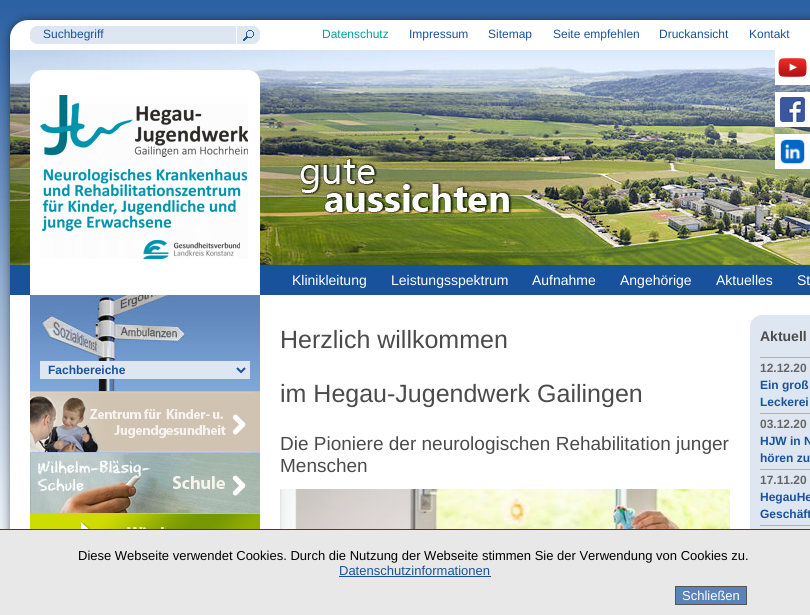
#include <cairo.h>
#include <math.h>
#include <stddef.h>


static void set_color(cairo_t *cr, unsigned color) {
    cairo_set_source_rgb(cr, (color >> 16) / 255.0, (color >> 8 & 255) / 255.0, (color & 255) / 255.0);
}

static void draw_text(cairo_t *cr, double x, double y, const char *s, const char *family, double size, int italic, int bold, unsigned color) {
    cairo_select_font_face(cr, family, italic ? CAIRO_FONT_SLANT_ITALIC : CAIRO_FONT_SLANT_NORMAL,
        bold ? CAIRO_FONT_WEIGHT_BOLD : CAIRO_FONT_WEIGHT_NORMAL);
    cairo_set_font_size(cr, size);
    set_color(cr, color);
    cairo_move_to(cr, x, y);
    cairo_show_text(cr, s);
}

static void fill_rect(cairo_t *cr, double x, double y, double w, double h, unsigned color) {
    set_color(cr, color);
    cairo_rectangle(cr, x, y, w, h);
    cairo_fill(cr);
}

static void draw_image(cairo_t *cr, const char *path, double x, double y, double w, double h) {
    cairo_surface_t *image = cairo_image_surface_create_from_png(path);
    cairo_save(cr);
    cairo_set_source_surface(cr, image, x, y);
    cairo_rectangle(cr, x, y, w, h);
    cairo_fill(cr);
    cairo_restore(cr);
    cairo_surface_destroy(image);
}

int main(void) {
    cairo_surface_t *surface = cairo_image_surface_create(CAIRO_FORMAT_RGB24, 810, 615);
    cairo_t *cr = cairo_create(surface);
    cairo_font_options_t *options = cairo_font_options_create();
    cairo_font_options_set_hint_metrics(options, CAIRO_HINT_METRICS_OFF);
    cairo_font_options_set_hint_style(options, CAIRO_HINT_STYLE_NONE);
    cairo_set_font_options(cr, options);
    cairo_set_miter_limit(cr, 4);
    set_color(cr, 0xFFFFFF);
    cairo_paint(cr);
    draw_image(cr, "assets/img1.png", 0, 0, 810, 529);
    draw_image(cr, "assets/img2.png", 2, 12, 808, 38);
    draw_image(cr, "assets/img3.png", 30, 26, 206, 18);
    draw_text(cr, 43, 38, "Suchbegriff", "Liberation Sans", 12, 0, 0, 0x19529C);
    draw_image(cr, "assets/img4.png", 237, 26, 23, 18);
    draw_text(cr, 322, 38, "Datenschutz", "Liberation Sans", 12, 0, 0, 0x00A297);
    draw_text(cr, 409, 38, "Impressum", "Liberation Sans", 12, 0, 0, 0x19529C);
    draw_text(cr, 488, 38, "Sitemap", "Liberation Sans", 12, 0, 0, 0x19529C);
    draw_text(cr, 553, 38, "Seite empfehlen", "Liberation Sans", 12, 0, 0, 0x19529C);
    draw_text(cr, 659, 38, "Druckansicht", "Liberation Sans", 12, 0, 0, 0x19529C);
    draw_text(cr, 749, 38, "Kontakt", "Liberation Sans", 12, 0, 0, 0x19529C);
    draw_image(cr, "assets/img5.png", 2, 50, 808, 479);
    draw_image(cr, "assets/img6.png", 10, 50, 800, 215);
    draw_image(cr, "assets/img7.png", 30, 70, 230, 11);
    fill_rect(cr, 10, 265, 800, 30, 0x19529C);
    fill_rect(cr, 30, 81, 230, 214, 0xFFFFFF);
    draw_image(cr, "assets/img8.png", 40, 95, 208, 164);
    draw_text(cr, 292, 285, "Klinikleitung", "Liberation Sans", 14, 0, 0, 0xFFFFFF);
    draw_text(cr, 391, 285, "Leistungsspektrum", "Liberation Sans", 14, 0, 0, 0xFFFFFF);
    draw_text(cr, 532, 285, "Aufnahme", "Liberation Sans", 14, 0, 0, 0xFFFFFF);
    draw_text(cr, 620, 285, "Angehörige", "Liberation Sans", 14, 0, 0, 0xFFFFFF);
    draw_text(cr, 716, 285, "Aktuelles", "Liberation Sans", 14, 0, 0, 0xFFFFFF);
    draw_text(cr, 797, 285, "St", "Liberation Sans", 14, 0, 0, 0xFFFFFF);
    draw_image(cr, "assets/img9.png", 30, 295, 230, 96);
    fill_rect(cr, 40, 361, 210, 18, 0xDEE6F1);
    cairo_new_path(cr);
    cairo_move_to(cr, 237, 368);
    cairo_line_to(cr, 241, 372);
    cairo_line_to(cr, 245, 368);
    set_color(cr, 0x19529C);
    cairo_stroke(cr);
    draw_text(cr, 48, 374, "Fachbereiche", "Liberation Sans", 12, 0, 1, 0x19529C);
    fill_rect(cr, 30, 391, 230, 123, 0xADC1DC);
    draw_image(cr, "assets/img10.png", 259, 392, 1, 60);
    draw_image(cr, "assets/img11.png", 30, 392, 229, 60);
    draw_image(cr, "assets/img12.png", 259, 453, 1, 60);
    draw_image(cr, "assets/img13.png", 30, 453, 229, 60);
    draw_image(cr, "assets/img14.png", 259, 514, 1, 15);
    draw_image(cr, "assets/img15.png", 30, 514, 229, 15);
    draw_text(cr, 280, 348, "Herzlich willkommen", "Liberation Sans", 25, 0, 0, 0x4B4B4B);
    draw_text(cr, 280, 402, "im Hegau-Jugendwerk Gailingen", "Liberation Sans", 25, 0, 0, 0x4B4B4B);
    draw_text(cr, 280, 450, "Die Pioniere der neurologischen Rehabilitation junger", "Liberation Sans", 19, 0, 0, 0x4B4B4B);
    draw_text(cr, 280, 472, "Menschen", "Liberation Sans", 19, 0, 0, 0x4B4B4B);
    draw_image(cr, "assets/img16.png", 280, 489, 450, 40);
    fill_rect(cr, 750, 315, 60, 214, 0xDEE6F1);
    draw_image(cr, "assets/img17.png", 750, 315, 11, 10);
    draw_text(cr, 760, 341, "Aktuell", "Liberation Sans", 14, 0, 1, 0x4B4B4B);
    fill_rect(cr, 760, 357, 50, 1, 0xB2B2B2);
    fill_rect(cr, 760, 413, 50, 1, 0xB2B2B2);
    draw_text(cr, 760, 372, "12.12.20", "Liberation Sans", 12, 0, 1, 0x666666);
    draw_text(cr, 760, 389, "Ein groß", "Liberation Sans", 12, 0, 1, 0x19529C);
    draw_text(cr, 760, 406, "Leckerei", "Liberation Sans", 12, 0, 1, 0x19529C);
    fill_rect(cr, 760, 469, 50, 1, 0xB2B2B2);
    draw_text(cr, 760, 428, "03.12.20", "Liberation Sans", 12, 0, 1, 0x666666);
    draw_text(cr, 760, 445, "HJW in N", "Liberation Sans", 12, 0, 1, 0x19529C);
    draw_text(cr, 760, 462, "hören zu", "Liberation Sans", 12, 0, 1, 0x19529C);
    fill_rect(cr, 760, 525, 50, 1, 0xB2B2B2);
    draw_text(cr, 760, 484, "17.11.20", "Liberation Sans", 12, 0, 1, 0x666666);
    draw_text(cr, 760, 501, "HegauHe", "Liberation Sans", 12, 0, 1, 0x19529C);
    draw_text(cr, 760, 518, "Geschäft", "Liberation Sans", 12, 0, 1, 0x19529C);
    draw_image(cr, "assets/img18.png", 775, 50, 35, 35);
    draw_image(cr, "assets/img19.png", 775, 92, 35, 35);
    draw_image(cr, "assets/img20.png", 775, 134, 35, 35);
    fill_rect(cr, 0, 530, 810, 85, 0xE8E8E8);
    fill_rect(cr, 0, 529, 810, 1, 0x4D3A33);
    draw_text(cr, 78, 560, "Diese Webseite verwendet Cookies. Durch die Nutzung der Webseite stimmen Sie der Verwendung von Cookies zu.", "Liberation Sans", 13, 0, 0, 0x000000);
    draw_text(cr, 339, 575, "Datenschutzinformationen", "Liberation Sans", 13, 0, 0, 0x19529C);
    fill_rect(cr, 339, 576, 152, 1, 0x19529C);
    set_color(cr, 0x5A83B9);
    cairo_rectangle(cr, 675.5, 586.5, 71, 18);
    cairo_fill_preserve(cr);
    set_color(cr, 0x555555);
    cairo_set_line_width(cr, 1);
    cairo_stroke(cr);
    draw_text(cr, 682, 600, "Schließen", "Liberation Sans", 13, 0, 0, 0xFFFFFF);
    cairo_surface_write_to_png(surface, "output.png");
    cairo_font_options_destroy(options);
    cairo_destroy(cr);
    cairo_surface_destroy(surface);
    return 0;
}
